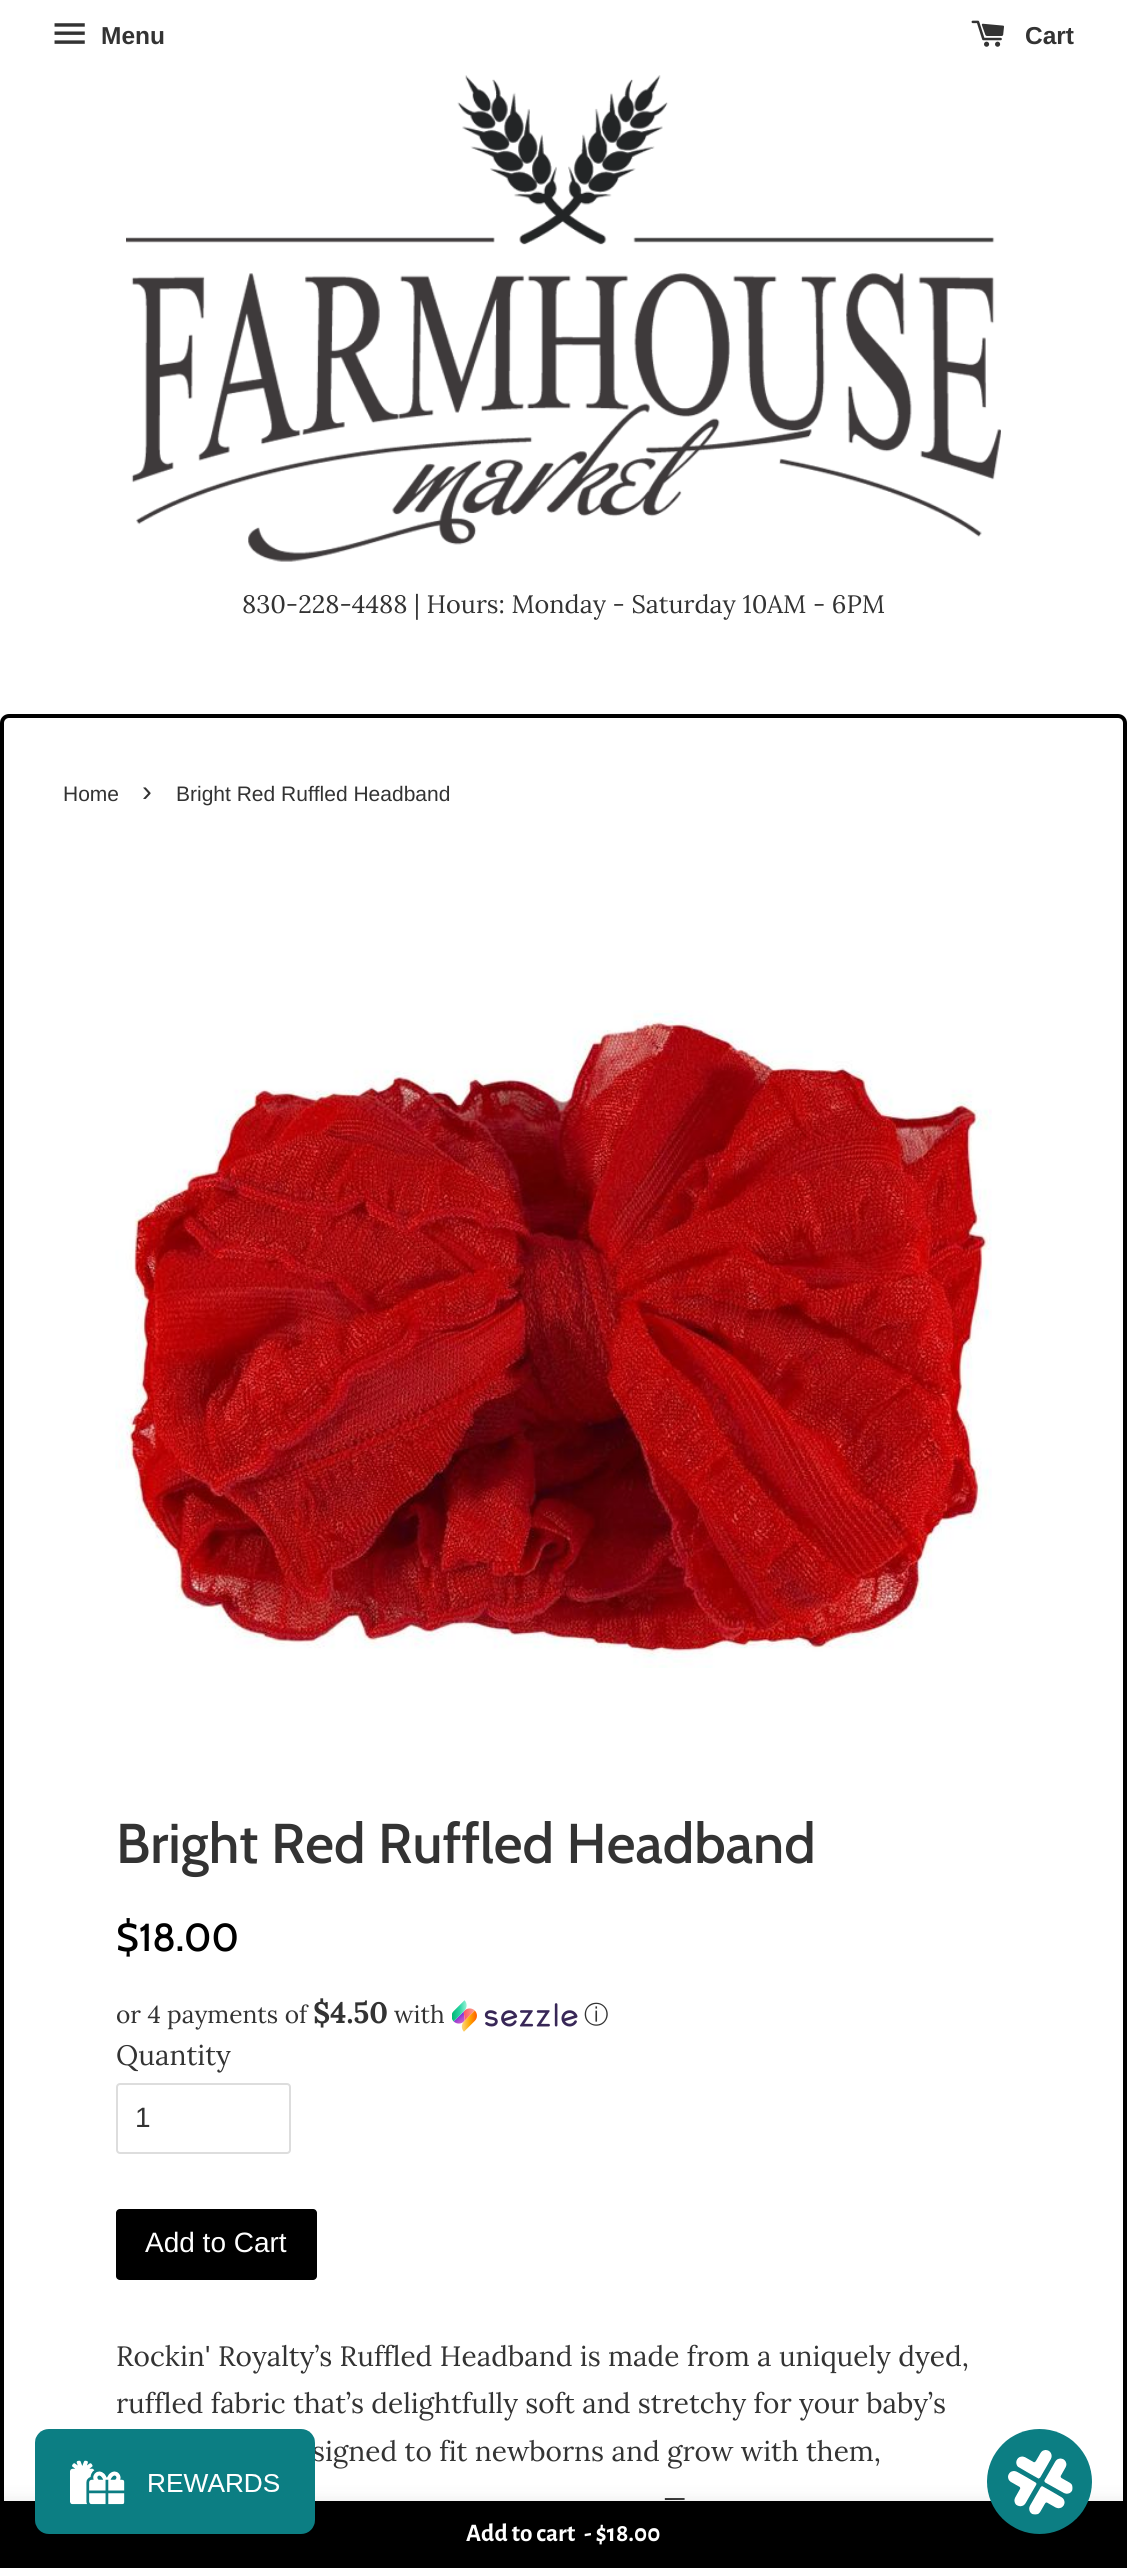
#include <cairo.h>
#include <math.h>
#include <stddef.h>


static void set_color(cairo_t *cr, unsigned color) {
    cairo_set_source_rgb(cr, (color >> 16) / 255.0, (color >> 8 & 255) / 255.0, (color & 255) / 255.0);
}

static void draw_text(cairo_t *cr, double x, double y, const char *s, const char *family, double size, int italic, int bold, unsigned color) {
    cairo_select_font_face(cr, family, italic ? CAIRO_FONT_SLANT_ITALIC : CAIRO_FONT_SLANT_NORMAL,
        bold ? CAIRO_FONT_WEIGHT_BOLD : CAIRO_FONT_WEIGHT_NORMAL);
    cairo_set_font_size(cr, size);
    set_color(cr, color);
    cairo_move_to(cr, x, y);
    cairo_show_text(cr, s);
}

static void fill_rect(cairo_t *cr, double x, double y, double w, double h, unsigned color) {
    set_color(cr, color);
    cairo_rectangle(cr, x, y, w, h);
    cairo_fill(cr);
}

static void rounded_rect(cairo_t *cr, double x, double y, double w, double h, double r) {
    cairo_new_sub_path(cr);
    cairo_arc(cr, x + w - r, y + h - r, r, 0, M_PI / 2);
    cairo_arc(cr, x + r, y + h - r, r, M_PI / 2, M_PI);
    cairo_arc(cr, x + r, y + r, r, M_PI, 1.5 * M_PI);
    cairo_arc(cr, x + w - r, y + r, r, 1.5 * M_PI, 2 * M_PI);
    cairo_close_path(cr);
}

static void draw_shadow(cairo_t *cr, double x, double y, double w, double h, double r, double blur, double alpha) {
    cairo_push_group_with_content(cr, CAIRO_CONTENT_ALPHA);
    cairo_set_operator(cr, CAIRO_OPERATOR_SOURCE);
    for (int i = 15; i >= -15 && fmin(w, h) + blur * i / 3 > 0; i -= 2) {
        double e = blur * i / 6;
        cairo_set_source_rgba(cr, 0, 0, 0, alpha * erfc((i - 1) / 8.5) / 2);
        rounded_rect(cr, x - e, y - e, w + 2 * e, h + 2 * e, fmax(0, fmin(r + e + blur * .6, fmin(w, h) / 2 + e)));
        cairo_fill(cr);
    }
    cairo_pattern_t *soft = cairo_pop_group(cr);
    cairo_mask(cr, soft);
    cairo_pattern_destroy(soft);
}

static void draw_image(cairo_t *cr, const char *path, double x, double y, double w, double h) {
    cairo_surface_t *image = cairo_image_surface_create_from_png(path);
    cairo_save(cr);
    cairo_set_source_surface(cr, image, x, y);
    cairo_rectangle(cr, x, y, w, h);
    cairo_fill(cr);
    cairo_restore(cr);
    cairo_surface_destroy(image);
}

int main(void) {
    cairo_surface_t *surface = cairo_image_surface_create(CAIRO_FORMAT_RGB24, 1127, 2568);
    cairo_t *cr = cairo_create(surface);
    cairo_font_options_t *options = cairo_font_options_create();
    cairo_font_options_set_hint_metrics(options, CAIRO_HINT_METRICS_OFF);
    cairo_font_options_set_hint_style(options, CAIRO_HINT_STYLE_NONE);
    cairo_set_font_options(cr, options);
    cairo_set_miter_limit(cr, 4);
    set_color(cr, 0xFFFFFF);
    cairo_paint(cr);
    draw_image(cr, "assets/img1.png", 54, 23, 31, 21);
    draw_text(cr, 101, 44, "Menu", "Liberation Sans", 24.5, 0, 1, 0x333333);
    draw_image(cr, "assets/img2.png", 971, 20, 33, 27);
    draw_text(cr, 1025, 44, "Cart", "Liberation Sans", 24.5, 0, 1, 0x333333);
    draw_image(cr, "assets/img3.png", 126, 75, 875, 487);
    draw_text(cr, 242, 613, "830-228-4488 | Hours: Monday - Saturday 10AM - 6PM", "Lora", 25.2, 0, 0, 0x333333);
    rounded_rect(cr, 2, 716, 1123, 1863, 7);
    set_color(cr, 0x000000);
    cairo_set_line_width(cr, 4);
    cairo_stroke(cr);
    draw_text(cr, 63, 801, "Home", "Liberation Sans", 21, 0, 0, 0x333333);
    draw_text(cr, 142, 801, "›", "Liberation Sans", 29.5, 0, 0, 0x333333);
    draw_text(cr, 176, 801, "Bright Red Ruffled Headband", "Liberation Sans", 21, 0, 0, 0x333333);
    draw_image(cr, "assets/img4.png", 115, 1010, 877, 658);
    draw_text(cr, 116, 1863, "Bright Red Ruffled Headband", "Cabin Medium", 56, 0, 0, 0x333333);
    draw_text(cr, 116, 1951, "$18.00", "Cabin Medium", 39, 0, 0, 0x000000);
    draw_text(cr, 116, 2023, "or 4 payments of", "Lora", 24.5, 0, 0, 0x333333);
    draw_text(cr, 313, 2023, "$4.50", "Lora", 29.5, 0, 1, 0x333333);
    draw_text(cr, 394, 2023, "with", "Lora", 24.5, 0, 0, 0x333333);
    draw_image(cr, "assets/img5.png", 452, 2000, 126, 32);
    draw_text(cr, 584, 2023, "ⓘ", "WenQuanYi Zen Hei Medium", 24.5, 0, 0, 0x333333);
    draw_text(cr, 116, 2065, "Quantity", "Lora", 28, 0, 0, 0x333333);
    rounded_rect(cr, 117, 2084, 173, 69, 3);
    set_color(cr, 0xDDDDDD);
    cairo_set_line_width(cr, 2);
    cairo_stroke(cr);
    draw_text(cr, 135, 2127, "1", "Liberation Sans", 28, 0, 0, 0x333333);
    set_color(cr, 0x000000);
    rounded_rect(cr, 116, 2209, 201, 71, 4);
    cairo_fill(cr);
    draw_text(cr, 145, 2252, "Add to Cart", "Liberation Sans", 28, 0, 0, 0xFFFFFF);
    draw_text(cr, 116, 2366, "Rockin' Royalty’s Ruffled Headband is made from a uniquely dyed,", "Lora", 28, 0, 0, 0x333333);
    draw_text(cr, 116, 2413, "ruffled fabric that’s delightfully soft and stretchy for your baby’s", "Lora", 28, 0, 0, 0x333333);
    draw_text(cr, 312, 2461, "signed to fit newborns and grow with them,", "Lora", 28, 0, 0, 0x333333);
    draw_text(cr, 663, 2508, "—", "Lora", 28, 0, 0, 0x333333);
    set_color(cr, 0x000000);
    draw_shadow(cr, 0, 2501, 1127, 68, 0, 9, 0.09);
    fill_rect(cr, 4, 2501, 1119, 67, 0x000000);
    draw_image(cr, "assets/img6.png", 35, 2429, 280, 105);
    draw_text(cr, 466, 2541, "Add to cart", "Alegreya Sans", 25.2, 0, 1, 0xFFFFFF);
    draw_text(cr, 584, 2541, "- $18.00", "Alegreya Sans", 25.2, 0, 1, 0xFFFFFF);
    draw_image(cr, "assets/img7.png", 987, 2429, 105, 105);
    cairo_surface_write_to_png(surface, "output.png");
    cairo_font_options_destroy(options);
    cairo_destroy(cr);
    cairo_surface_destroy(surface);
    return 0;
}
